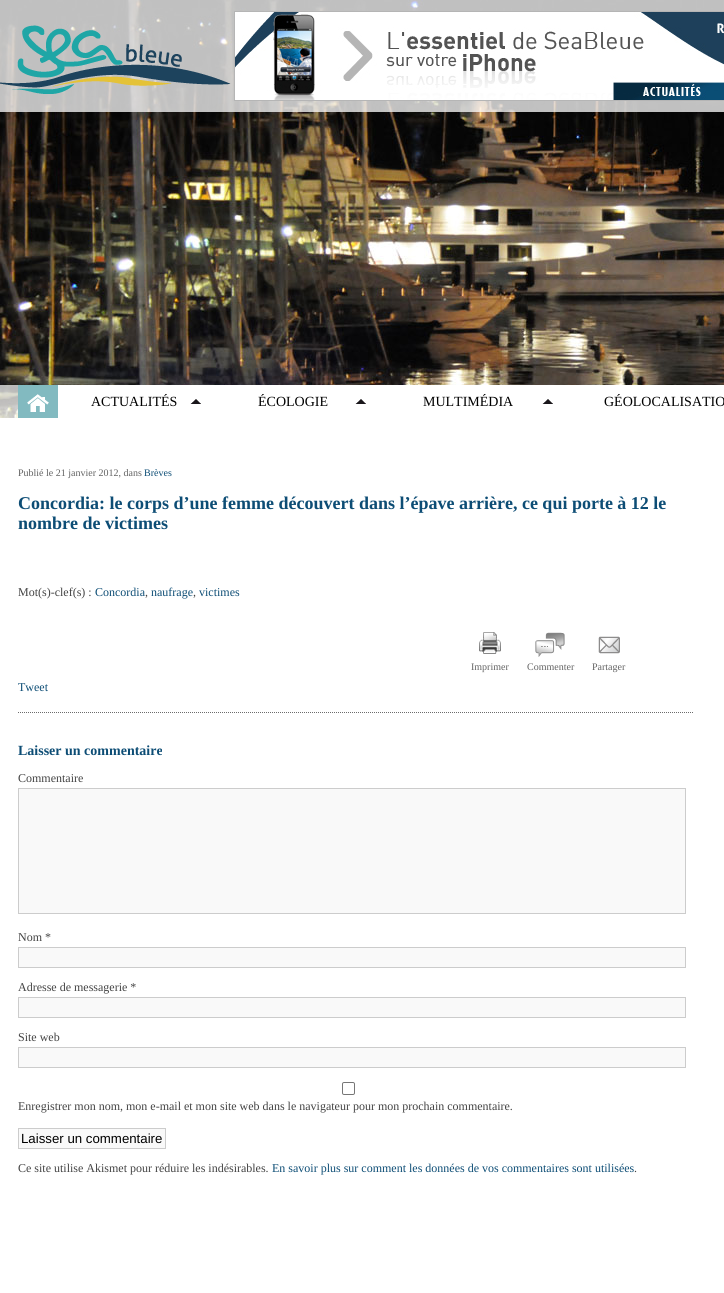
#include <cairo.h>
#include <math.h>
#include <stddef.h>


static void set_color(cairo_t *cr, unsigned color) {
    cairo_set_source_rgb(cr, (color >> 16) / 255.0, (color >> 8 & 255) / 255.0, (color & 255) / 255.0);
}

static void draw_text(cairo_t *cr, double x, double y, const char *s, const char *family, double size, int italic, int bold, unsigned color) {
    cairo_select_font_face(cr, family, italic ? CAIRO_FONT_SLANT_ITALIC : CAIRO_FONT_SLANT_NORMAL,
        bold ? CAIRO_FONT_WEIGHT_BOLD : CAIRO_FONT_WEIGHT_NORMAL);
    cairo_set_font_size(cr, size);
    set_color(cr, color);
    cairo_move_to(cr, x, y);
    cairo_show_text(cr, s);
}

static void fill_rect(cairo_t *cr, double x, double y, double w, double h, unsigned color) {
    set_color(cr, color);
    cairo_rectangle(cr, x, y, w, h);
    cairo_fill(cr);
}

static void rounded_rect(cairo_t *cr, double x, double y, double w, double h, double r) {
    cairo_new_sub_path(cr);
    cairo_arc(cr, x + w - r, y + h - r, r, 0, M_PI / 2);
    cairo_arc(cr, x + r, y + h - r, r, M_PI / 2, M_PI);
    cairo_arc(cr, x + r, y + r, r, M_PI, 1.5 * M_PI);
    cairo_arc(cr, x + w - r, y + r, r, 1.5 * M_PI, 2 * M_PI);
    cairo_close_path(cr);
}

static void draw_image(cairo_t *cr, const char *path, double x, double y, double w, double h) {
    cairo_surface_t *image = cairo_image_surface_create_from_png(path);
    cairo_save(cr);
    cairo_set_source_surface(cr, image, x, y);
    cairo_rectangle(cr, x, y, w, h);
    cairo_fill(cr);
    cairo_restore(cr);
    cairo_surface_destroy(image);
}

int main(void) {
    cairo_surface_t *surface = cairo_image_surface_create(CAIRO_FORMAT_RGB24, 724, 1293);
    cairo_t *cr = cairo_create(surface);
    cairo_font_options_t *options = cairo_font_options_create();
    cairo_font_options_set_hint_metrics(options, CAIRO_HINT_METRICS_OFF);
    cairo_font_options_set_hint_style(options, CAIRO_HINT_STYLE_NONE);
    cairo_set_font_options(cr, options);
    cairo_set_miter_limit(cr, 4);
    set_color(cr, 0xFFFFFF);
    cairo_paint(cr);
    draw_image(cr, "assets/img1.png", 0, 0, 724, 418);
    draw_image(cr, "assets/img2.png", 0, 0, 724, 418);
    draw_image(cr, "assets/img3.png", 0, 25, 231, 69);
    draw_image(cr, "assets/img4.png", 234, 11, 490, 90);
    draw_image(cr, "assets/img5.png", 18, 385, 40, 33);
    fill_rect(cr, 58, 385, 666, 33, 0xFFFFFF);
    draw_image(cr, "assets/img6.png", 190, 399, 11, 5);
    draw_text(cr, 91, 406, "ACTUALITÉS", "Liberation Serif", 14, 0, 0, 0x000000);
    draw_image(cr, "assets/img6.png", 355, 399, 11, 5);
    draw_text(cr, 258, 406, "ÉCOLOGIE", "Liberation Serif", 14, 0, 0, 0x000000);
    draw_image(cr, "assets/img6.png", 542, 399, 11, 5);
    draw_text(cr, 423, 406, "MULTIMÉDIA", "Liberation Serif", 14, 0, 0, 0x000000);
    draw_text(cr, 604, 406, "GÉOLOCALISATIO", "Liberation Serif", 14, 0, 0, 0x000000);
    cairo_new_path(cr);
    cairo_move_to(cr, 18, 712.5);
    cairo_line_to(cr, 693, 712.5);
    set_color(cr, 0x6C6C6C);
    cairo_set_line_width(cr, 1);
    cairo_set_dash(cr, (double[]){1, 1}, 2, 0);
    cairo_stroke(cr);
    draw_text(cr, 18, 476, "Publié le 21 janvier 2012, dans", "Liberation Serif", 10, 0, 0, 0x626262);
    draw_text(cr, 144, 476, "Brèves", "Liberation Serif", 10, 0, 0, 0x0D4D75);
    draw_text(cr, 18, 509, "Concordia: le corps d’une femme découvert dans l’épave arrière, ce qui porte à 12 le", "Liberation Serif", 18, 0, 1, 0x0D4D75);
    draw_text(cr, 18, 529, "nombre de victimes", "Liberation Serif", 18, 0, 1, 0x0D4D75);
    draw_text(cr, 18, 596, "Mot(s)-clef(s) :", "Liberation Serif", 12, 0, 0, 0x434343);
    draw_text(cr, 95, 596, "Concordia", "Liberation Serif", 12, 0, 0, 0x0D4D75);
    draw_text(cr, 145, 596, ",", "Liberation Serif", 12, 0, 0, 0x434343);
    draw_text(cr, 151, 596, "naufrage", "Liberation Serif", 12, 0, 0, 0x0D4D75);
    draw_text(cr, 193, 596, ",", "Liberation Serif", 12, 0, 0, 0x434343);
    draw_text(cr, 199, 596, "victimes", "Liberation Serif", 12, 0, 0, 0x0D4D75);
    draw_image(cr, "assets/img7.png", 479, 632, 22, 22);
    draw_text(cr, 471, 670, "Imprimer", "Liberation Serif", 10, 0, 0, 0x626262);
    draw_image(cr, "assets/img8.png", 535, 632, 30, 25);
    draw_text(cr, 527, 670, "Commenter", "Liberation Serif", 10, 0, 0, 0x626262);
    draw_image(cr, "assets/img9.png", 598, 636, 22, 18);
    draw_text(cr, 592, 670, "Partager", "Liberation Serif", 10, 0, 0, 0x626262);
    draw_text(cr, 18, 691, "Tweet", "Liberation Serif", 12, 0, 0, 0x0D4D75);
    draw_text(cr, 18, 755, "Laisser un commentaire", "Liberation Serif", 14, 0, 1, 0x0D4D75);
    draw_text(cr, 18, 782, "Commentaire", "Liberation Serif", 12, 0, 0, 0x434343);
    set_color(cr, 0xF9F9F9);
    cairo_rectangle(cr, 18.5, 788.5, 667, 125);
    cairo_fill_preserve(cr);
    set_color(cr, 0xCCCCCC);
    cairo_set_dash(cr, NULL, 0, 0);
    cairo_stroke(cr);
    draw_text(cr, 18, 941, "Nom *", "Liberation Serif", 12, 0, 0, 0x434343);
    set_color(cr, 0xF9F9F9);
    cairo_rectangle(cr, 18.5, 947.5, 667, 20);
    cairo_fill_preserve(cr);
    set_color(cr, 0xCCCCCC);
    cairo_stroke(cr);
    draw_text(cr, 18, 991, "Adresse de messagerie *", "Liberation Serif", 12, 0, 0, 0x434343);
    set_color(cr, 0xF9F9F9);
    cairo_rectangle(cr, 18.5, 997.5, 667, 20);
    cairo_fill_preserve(cr);
    set_color(cr, 0xCCCCCC);
    cairo_stroke(cr);
    draw_text(cr, 18, 1041, "Site web", "Liberation Serif", 12, 0, 0, 0x434343);
    set_color(cr, 0xF9F9F9);
    cairo_rectangle(cr, 18.5, 1047.5, 667, 20);
    cairo_fill_preserve(cr);
    set_color(cr, 0xCCCCCC);
    cairo_stroke(cr);
    rounded_rect(cr, 342.5, 1082.5, 12, 12, 1.5);
    set_color(cr, 0x767676);
    cairo_stroke(cr);
    draw_text(cr, 18, 1110, "Enregistrer mon nom, mon e-mail et mon site web dans le navigateur pour mon prochain commentaire.", "Liberation Serif", 12, 0, 0, 0x434343);
    set_color(cr, 0xF9F9F9);
    cairo_rectangle(cr, 18.5, 1128.5, 147, 20);
    cairo_fill_preserve(cr);
    set_color(cr, 0xCCCCCC);
    cairo_stroke(cr);
    draw_text(cr, 21, 1143, "Laisser un commentaire", "Liberation Sans", 13.25, 0, 0, 0x000000);
    draw_text(cr, 18, 1172, "Ce site utilise Akismet pour réduire les indésirables.", "Liberation Serif", 12, 0, 0, 0x434343);
    draw_text(cr, 272, 1172, "En savoir plus sur comment les données de vos commentaires sont utilisées", "Liberation Serif", 12, 0, 0, 0x0D4D75);
    draw_text(cr, 634, 1172, ".", "Liberation Serif", 12, 0, 0, 0x434343);
    cairo_surface_write_to_png(surface, "output.png");
    cairo_font_options_destroy(options);
    cairo_destroy(cr);
    cairo_surface_destroy(surface);
    return 0;
}
